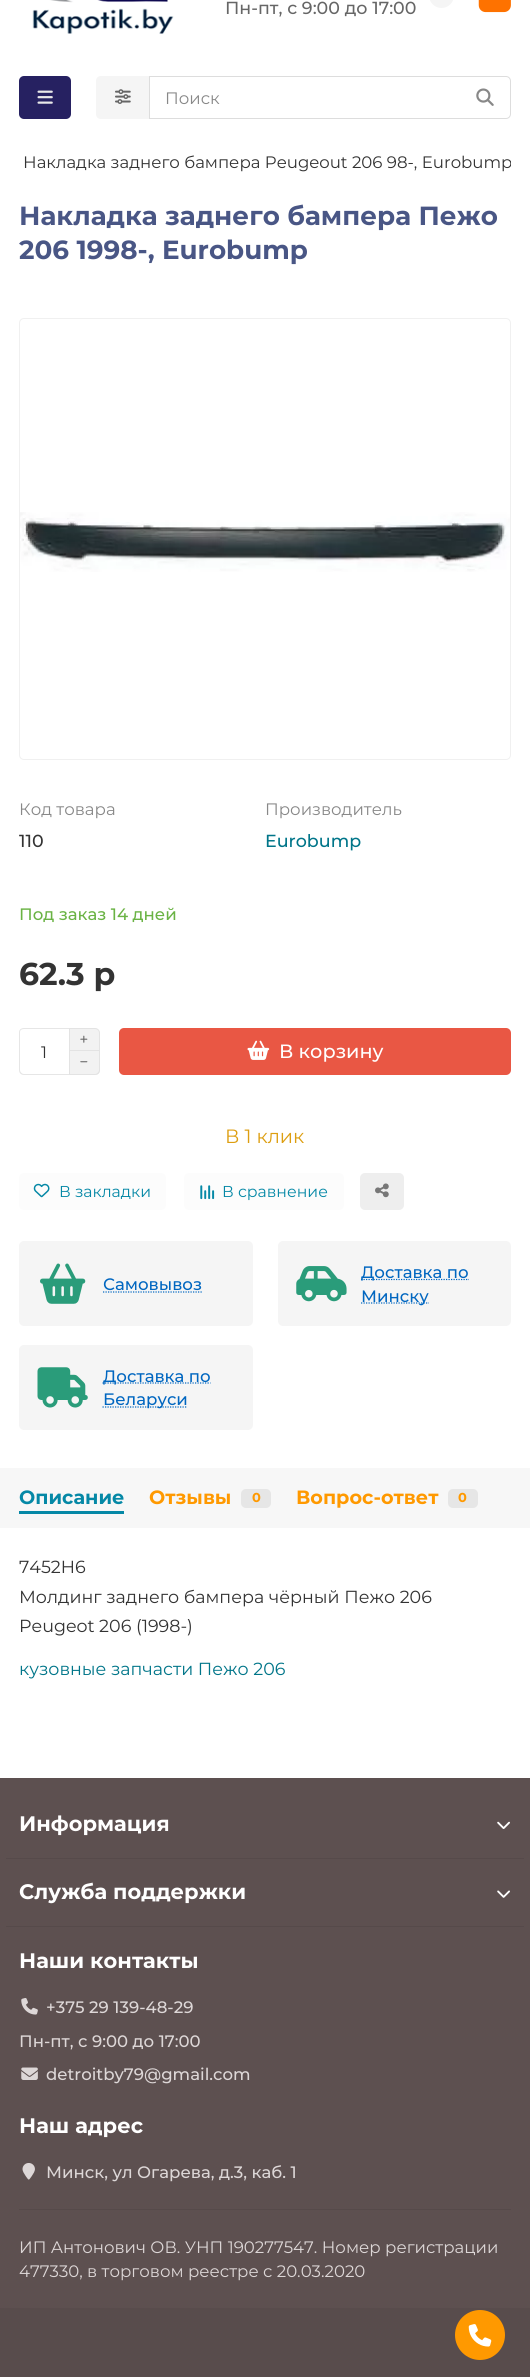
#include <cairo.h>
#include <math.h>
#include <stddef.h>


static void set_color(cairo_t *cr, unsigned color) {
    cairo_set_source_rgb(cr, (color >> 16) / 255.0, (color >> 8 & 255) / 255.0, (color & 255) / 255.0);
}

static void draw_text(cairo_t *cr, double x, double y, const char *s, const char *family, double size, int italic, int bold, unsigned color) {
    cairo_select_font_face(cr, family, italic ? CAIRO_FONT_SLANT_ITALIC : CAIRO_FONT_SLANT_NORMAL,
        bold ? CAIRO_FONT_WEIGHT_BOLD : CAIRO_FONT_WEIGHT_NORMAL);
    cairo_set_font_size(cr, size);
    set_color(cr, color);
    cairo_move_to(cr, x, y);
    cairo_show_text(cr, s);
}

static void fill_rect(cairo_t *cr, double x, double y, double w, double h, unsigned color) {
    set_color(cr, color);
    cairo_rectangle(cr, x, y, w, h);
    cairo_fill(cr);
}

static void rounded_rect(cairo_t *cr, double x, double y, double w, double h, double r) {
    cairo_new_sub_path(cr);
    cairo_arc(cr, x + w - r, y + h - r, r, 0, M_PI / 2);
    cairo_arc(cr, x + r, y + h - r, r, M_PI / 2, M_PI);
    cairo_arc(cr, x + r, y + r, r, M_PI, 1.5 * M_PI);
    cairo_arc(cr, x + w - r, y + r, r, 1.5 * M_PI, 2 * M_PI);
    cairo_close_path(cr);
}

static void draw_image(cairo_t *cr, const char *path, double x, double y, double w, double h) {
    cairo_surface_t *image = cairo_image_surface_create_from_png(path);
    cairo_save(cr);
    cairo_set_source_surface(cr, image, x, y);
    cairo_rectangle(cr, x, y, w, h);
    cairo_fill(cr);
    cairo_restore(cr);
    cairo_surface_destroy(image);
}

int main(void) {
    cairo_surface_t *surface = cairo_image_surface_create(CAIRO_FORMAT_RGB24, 530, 2377);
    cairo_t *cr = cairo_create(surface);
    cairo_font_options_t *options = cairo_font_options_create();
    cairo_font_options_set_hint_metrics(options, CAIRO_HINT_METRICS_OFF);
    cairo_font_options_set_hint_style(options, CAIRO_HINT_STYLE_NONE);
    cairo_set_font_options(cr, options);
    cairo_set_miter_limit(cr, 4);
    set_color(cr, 0xFFFFFF);
    cairo_paint(cr);
    draw_image(cr, "assets/img1.png", 32, 0, 142, 34);
    draw_text(cr, 225, 14, "Пн-пт, с 9:00 до 17:00", "Montserrat Medium", 17.5, 0, 0, 0x666666);
    set_color(cr, 0xF5F5F5);
    rounded_rect(cr, 429, -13, 25, 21, 12.5);
    cairo_fill(cr);
    draw_image(cr, "assets/img2.png", 478, 0, 33, 13);
    set_color(cr, 0x262161);
    rounded_rect(cr, 19, 76, 52, 43, 5);
    cairo_fill(cr);
    draw_image(cr, "assets/img3.png", 37, 90, 16, 14);
    set_color(cr, 0xF5F5F5);
    cairo_new_path(cr);
    cairo_move_to(cr, 101, 76);
    cairo_line_to(cr, 149, 76);
    cairo_line_to(cr, 149, 119);
    cairo_line_to(cr, 101, 119);
    cairo_curve_to(cr, 98, 119, 96, 117, 96, 114);
    cairo_line_to(cr, 96, 81);
    cairo_curve_to(cr, 96, 78, 98, 76, 101, 76);
    cairo_close_path(cr);
    cairo_fill(cr);
    draw_image(cr, "assets/img4.png", 115, 89, 16, 15);
    cairo_new_path(cr);
    cairo_move_to(cr, 149.5, 76.5);
    cairo_line_to(cr, 506, 76.5);
    cairo_curve_to(cr, 508.5, 76.5, 510.5, 78.5, 510.5, 81);
    cairo_line_to(cr, 510.5, 114);
    cairo_curve_to(cr, 510.5, 116.5, 508.5, 118.5, 506, 118.5);
    cairo_line_to(cr, 149.5, 118.5);
    cairo_close_path(cr);
    set_color(cr, 0xDDDDDD);
    cairo_set_line_width(cr, 1);
    cairo_stroke(cr);
    draw_text(cr, 165, 104, "Поиск", "Montserrat", 16.6, 0, 0, 0x888888);
    draw_image(cr, "assets/img5.png", 476, 88, 18, 18);
    cairo_save(cr);
    cairo_rectangle(cr, 19, 150, 492, 36);
    cairo_clip(cr);
    draw_text(cr, 23, 168, "Накладка заднего бампера Peugeout 206 98-, Eurobump", "Montserrat", 16.6, 0, 0, 0x333333);
    cairo_restore(cr);
    draw_text(cr, 19, 225, "Накладка заднего бампера Пежо", "Montserrat", 26.25, 0, 1, 0x495685);
    draw_text(cr, 19, 259, "206 1998-, Eurobump", "Montserrat", 26.25, 0, 1, 0x495685);
    rounded_rect(cr, 19.5, 318.5, 491, 441, 4.5);
    set_color(cr, 0xF0F0F0);
    cairo_stroke(cr);
    draw_image(cr, "assets/img6.png", 20, 512, 490, 60);
    draw_text(cr, 19, 815, "Код товара", "Montserrat", 16.6, 0, 0, 0x888888);
    draw_text(cr, 19, 847, "110", "Montserrat Medium", 17.5, 0, 0, 0x333333);
    draw_text(cr, 265, 815, "Производитель", "Montserrat", 16.6, 0, 0, 0x888888);
    draw_text(cr, 265, 847, "Eurobump", "Montserrat Medium", 17.5, 0, 0, 0x007589);
    draw_text(cr, 19, 920, "Под заказ 14 дней", "Montserrat Medium", 16.6, 0, 0, 0x6AB344);
    draw_text(cr, 19, 985, "62.3 р", "Montserrat", 31.5, 0, 1, 0x333333);
    set_color(cr, 0xE6E6E6);
    cairo_set_fill_rule(cr, CAIRO_FILL_RULE_EVEN_ODD);
    cairo_new_path(cr);
    cairo_move_to(cr, 24, 1028);
    cairo_line_to(cr, 69, 1028);
    cairo_line_to(cr, 69, 1075);
    cairo_line_to(cr, 24, 1075);
    cairo_curve_to(cr, 21, 1075, 19, 1073, 19, 1070);
    cairo_line_to(cr, 19, 1032);
    cairo_curve_to(cr, 19, 1030, 21, 1028, 24, 1028);
    cairo_close_path(cr);
    cairo_move_to(cr, 24, 1029);
    cairo_line_to(cr, 69, 1029);
    cairo_line_to(cr, 69, 1074);
    cairo_line_to(cr, 24, 1074);
    cairo_curve_to(cr, 22, 1074, 20, 1072, 20, 1070);
    cairo_line_to(cr, 20, 1032);
    cairo_curve_to(cr, 20, 1030, 22, 1029, 24, 1029);
    cairo_close_path(cr);
    cairo_fill(cr);
    draw_text(cr, 41, 1058, "1", "Montserrat", 16.6, 0, 0, 0x333333);
    set_color(cr, 0xF2F2F2);
    cairo_new_path(cr);
    cairo_move_to(cr, 69.5, 1028.5);
    cairo_line_to(cr, 95, 1028.5);
    cairo_curve_to(cr, 97.5, 1028.5, 99.5, 1030.5, 99.5, 1033);
    cairo_line_to(cr, 99.5, 1050.5);
    cairo_line_to(cr, 69.5, 1050.5);
    cairo_close_path(cr);
    cairo_fill_preserve(cr);
    set_color(cr, 0xE3E3E3);
    cairo_stroke(cr);
    draw_image(cr, "assets/img7.png", 80, 1035, 8, 8);
    set_color(cr, 0xF2F2F2);
    cairo_new_path(cr);
    cairo_move_to(cr, 69, 1051);
    cairo_line_to(cr, 100, 1051);
    cairo_line_to(cr, 100, 1070);
    cairo_curve_to(cr, 100, 1073, 98, 1075, 95, 1075);
    cairo_line_to(cr, 69, 1075);
    cairo_close_path(cr);
    cairo_fill(cr);
    set_color(cr, 0xE3E3E3);
    cairo_new_path(cr);
    cairo_move_to(cr, 69, 1051);
    cairo_line_to(cr, 100, 1051);
    cairo_line_to(cr, 100, 1070);
    cairo_curve_to(cr, 100, 1073, 98, 1075, 95, 1075);
    cairo_line_to(cr, 69, 1075);
    cairo_close_path(cr);
    cairo_move_to(cr, 70, 1051);
    cairo_line_to(cr, 99, 1051);
    cairo_line_to(cr, 99, 1070);
    cairo_curve_to(cr, 99, 1072, 97, 1074, 95, 1074);
    cairo_line_to(cr, 70, 1074);
    cairo_close_path(cr);
    cairo_fill(cr);
    draw_image(cr, "assets/img8.png", 80, 1061, 8, 2);
    set_color(cr, 0xE95744);
    rounded_rect(cr, 119, 1028, 392, 47, 5);
    cairo_fill(cr);
    draw_image(cr, "assets/img9.png", 247, 1040, 23, 20);
    draw_text(cr, 279, 1058, "В корзину", "Montserrat Medium", 19.25, 0, 0, 0xFFFFFF);
    draw_text(cr, 225, 1143, "В 1 клик", "Montserrat", 19.25, 0, 0, 0xDD9E10);
    set_color(cr, 0xFCFCFC);
    rounded_rect(cr, 19, 1173, 147, 37, 5);
    cairo_fill(cr);
    draw_image(cr, "assets/img10.png", 33, 1183, 17, 15);
    draw_text(cr, 59, 1197, "В закладки", "Montserrat", 15.75, 0, 0, 0x0588A6);
    set_color(cr, 0xFCFCFC);
    rounded_rect(cr, 184, 1173, 160, 37, 5);
    cairo_fill(cr);
    draw_image(cr, "assets/img11.png", 200, 1185, 15, 15);
    draw_text(cr, 222, 1197, "В сравнение", "Montserrat", 15.75, 0, 0, 0x0588A6);
    set_color(cr, 0xEEEEEE);
    rounded_rect(cr, 360, 1173, 44, 37, 5);
    cairo_fill(cr);
    draw_image(cr, "assets/img12.png", 375, 1183, 14, 15);
    set_color(cr, 0xF5F5F5);
    rounded_rect(cr, 19, 1241, 234, 85, 5);
    cairo_fill(cr);
    draw_image(cr, "assets/img13.png", 40, 1263, 46, 41);
    draw_text(cr, 103, 1290, "Самовывоз", "Montserrat Medium", 16.6, 0, 0, 0x0066C0);
    cairo_new_path(cr);
    cairo_move_to(cr, 103, 1292);
    cairo_line_to(cr, 202, 1292);
    cairo_set_line_width(cr, 1.2);
    cairo_set_dash(cr, (double[]){1.25, 1.25}, 2, 0);
    cairo_stroke(cr);
    set_color(cr, 0xF5F5F5);
    rounded_rect(cr, 278, 1241, 233, 85, 5);
    cairo_fill(cr);
    draw_image(cr, "assets/img14.png", 296, 1266, 51, 36);
    cairo_new_path(cr);
    cairo_move_to(cr, 361, 1279.5);
    cairo_line_to(cr, 469, 1279.5);
    set_color(cr, 0x0066C0);
    cairo_stroke(cr);
    draw_text(cr, 361, 1278, "Доставка по", "Montserrat Medium", 16.6, 0, 0, 0x0066C0);
    cairo_new_path(cr);
    cairo_move_to(cr, 361, 1303);
    cairo_line_to(cr, 429, 1303);
    cairo_stroke(cr);
    draw_text(cr, 361, 1302, "Минску", "Montserrat Medium", 16.6, 0, 0, 0x0066C0);
    set_color(cr, 0xF5F5F5);
    rounded_rect(cr, 19, 1345, 234, 85, 5);
    cairo_fill(cr);
    draw_image(cr, "assets/img15.png", 37, 1367, 51, 41);
    cairo_new_path(cr);
    cairo_move_to(cr, 102.5, 1383);
    cairo_line_to(cr, 210.5, 1383);
    set_color(cr, 0x0066C0);
    cairo_stroke(cr);
    draw_text(cr, 103, 1382, "Доставка по", "Montserrat Medium", 16.6, 0, 0, 0x0066C0);
    cairo_new_path(cr);
    cairo_move_to(cr, 102.5, 1407);
    cairo_line_to(cr, 187.5, 1407);
    cairo_stroke(cr);
    draw_text(cr, 103, 1405, "Беларуси", "Montserrat Medium", 16.6, 0, 0, 0x0066C0);
    fill_rect(cr, 0, 1468, 530, 60, 0xF7F7F7);
    draw_text(cr, 19, 1504, "Описание", "Montserrat", 19.25, 0, 1, 0x0588A6);
    fill_rect(cr, 19, 1511, 105, 3, 0x0588A6);
    draw_text(cr, 149, 1504, "Отзывы", "Montserrat", 19.25, 0, 1, 0xFF9900);
    set_color(cr, 0xE6E6E6);
    rounded_rect(cr, 241, 1489, 30, 19, 5);
    cairo_fill(cr);
    draw_text(cr, 252, 1502, "0", "Montserrat", 13, 0, 1, 0xFF9900);
    draw_text(cr, 296, 1504, "Вопрос-ответ", "Montserrat", 19.25, 0, 1, 0xFF9900);
    set_color(cr, 0xE6E6E6);
    rounded_rect(cr, 448, 1489, 30, 19, 5);
    cairo_fill(cr);
    draw_text(cr, 458, 1502, "0", "Montserrat", 13, 0, 1, 0xFF9900);
    draw_text(cr, 19, 1573, "7452H6", "Montserrat", 17.5, 0, 0, 0x333333);
    draw_text(cr, 19, 1603, "Молдинг заднего бампера чёрный Пежо 206", "Montserrat", 17.5, 0, 0, 0x333333);
    draw_text(cr, 19, 1632, "Peugeot 206 (1998-)", "Montserrat", 17.5, 0, 0, 0x333333);
    draw_text(cr, 19, 1675, "кузовные запчасти Пежо 206", "Montserrat", 17.5, 0, 0, 0x007589);
    fill_rect(cr, 0, 1778, 530, 530, 0x5D5050);
    draw_text(cr, 19, 1831, "Информация", "Montserrat", 21, 0, 1, 0xFFFFFF);
    draw_image(cr, "assets/img16.png", 497, 1821, 13, 8);
    fill_rect(cr, 6, 1858, 518, 1, 0x564A4A);
    draw_text(cr, 19, 1899, "Служба поддержки", "Montserrat", 21, 0, 1, 0xFFFFFF);
    draw_image(cr, "assets/img17.png", 497, 1890, 13, 8);
    fill_rect(cr, 6, 1926, 518, 1, 0x564A4A);
    draw_text(cr, 19, 1968, "Наши контакты", "Montserrat", 21, 0, 1, 0xFFFFFF);
    draw_image(cr, "assets/img18.png", 21, 1998, 17, 17);
    draw_text(cr, 46, 2013, "+375 29 139-48-29", "Montserrat Medium", 16.6, 0, 0, 0xDDD7D7);
    draw_text(cr, 19, 2047, "Пн-пт, с 9:00 до 17:00", "Montserrat Medium", 16.6, 0, 0, 0xDDD7D7);
    draw_image(cr, "assets/img19.png", 21, 2067, 17, 13);
    draw_text(cr, 46, 2080, "detroitby79@gmail.com", "Montserrat Medium", 16.6, 0, 0, 0xDDD7D7);
    draw_text(cr, 19, 2133, "Наш адрес", "Montserrat", 21, 0, 1, 0xFFFFFF);
    draw_image(cr, "assets/img20.png", 22, 2163, 13, 17);
    draw_text(cr, 46, 2178, "Минск, ул Огарева, д.3, каб. 1", "Montserrat Medium", 16.6, 0, 0, 0xDDD7D7);
    fill_rect(cr, 19, 2209, 492, 1, 0x564A4A);
    draw_text(cr, 19, 2253, "ИП Антонович ОВ. УНП 190277547. Номер регистрации", "Montserrat", 16.6, 0, 0, 0xDDD7D7);
    draw_text(cr, 19, 2277, "477330, в торговом реестре с 20.03.2020", "Montserrat", 16.6, 0, 0, 0xDDD7D7);
    fill_rect(cr, 0, 2308, 530, 69, 0x584C4C);
    set_color(cr, 0xFF9900);
    cairo_new_path(cr);
    cairo_arc(cr, 480, 2335, 25, 0, 2 * M_PI);
    cairo_fill(cr);
    draw_image(cr, "assets/img21.png", 468, 2324, 24, 23);
    cairo_surface_write_to_png(surface, "output.png");
    cairo_font_options_destroy(options);
    cairo_destroy(cr);
    cairo_surface_destroy(surface);
    return 0;
}
